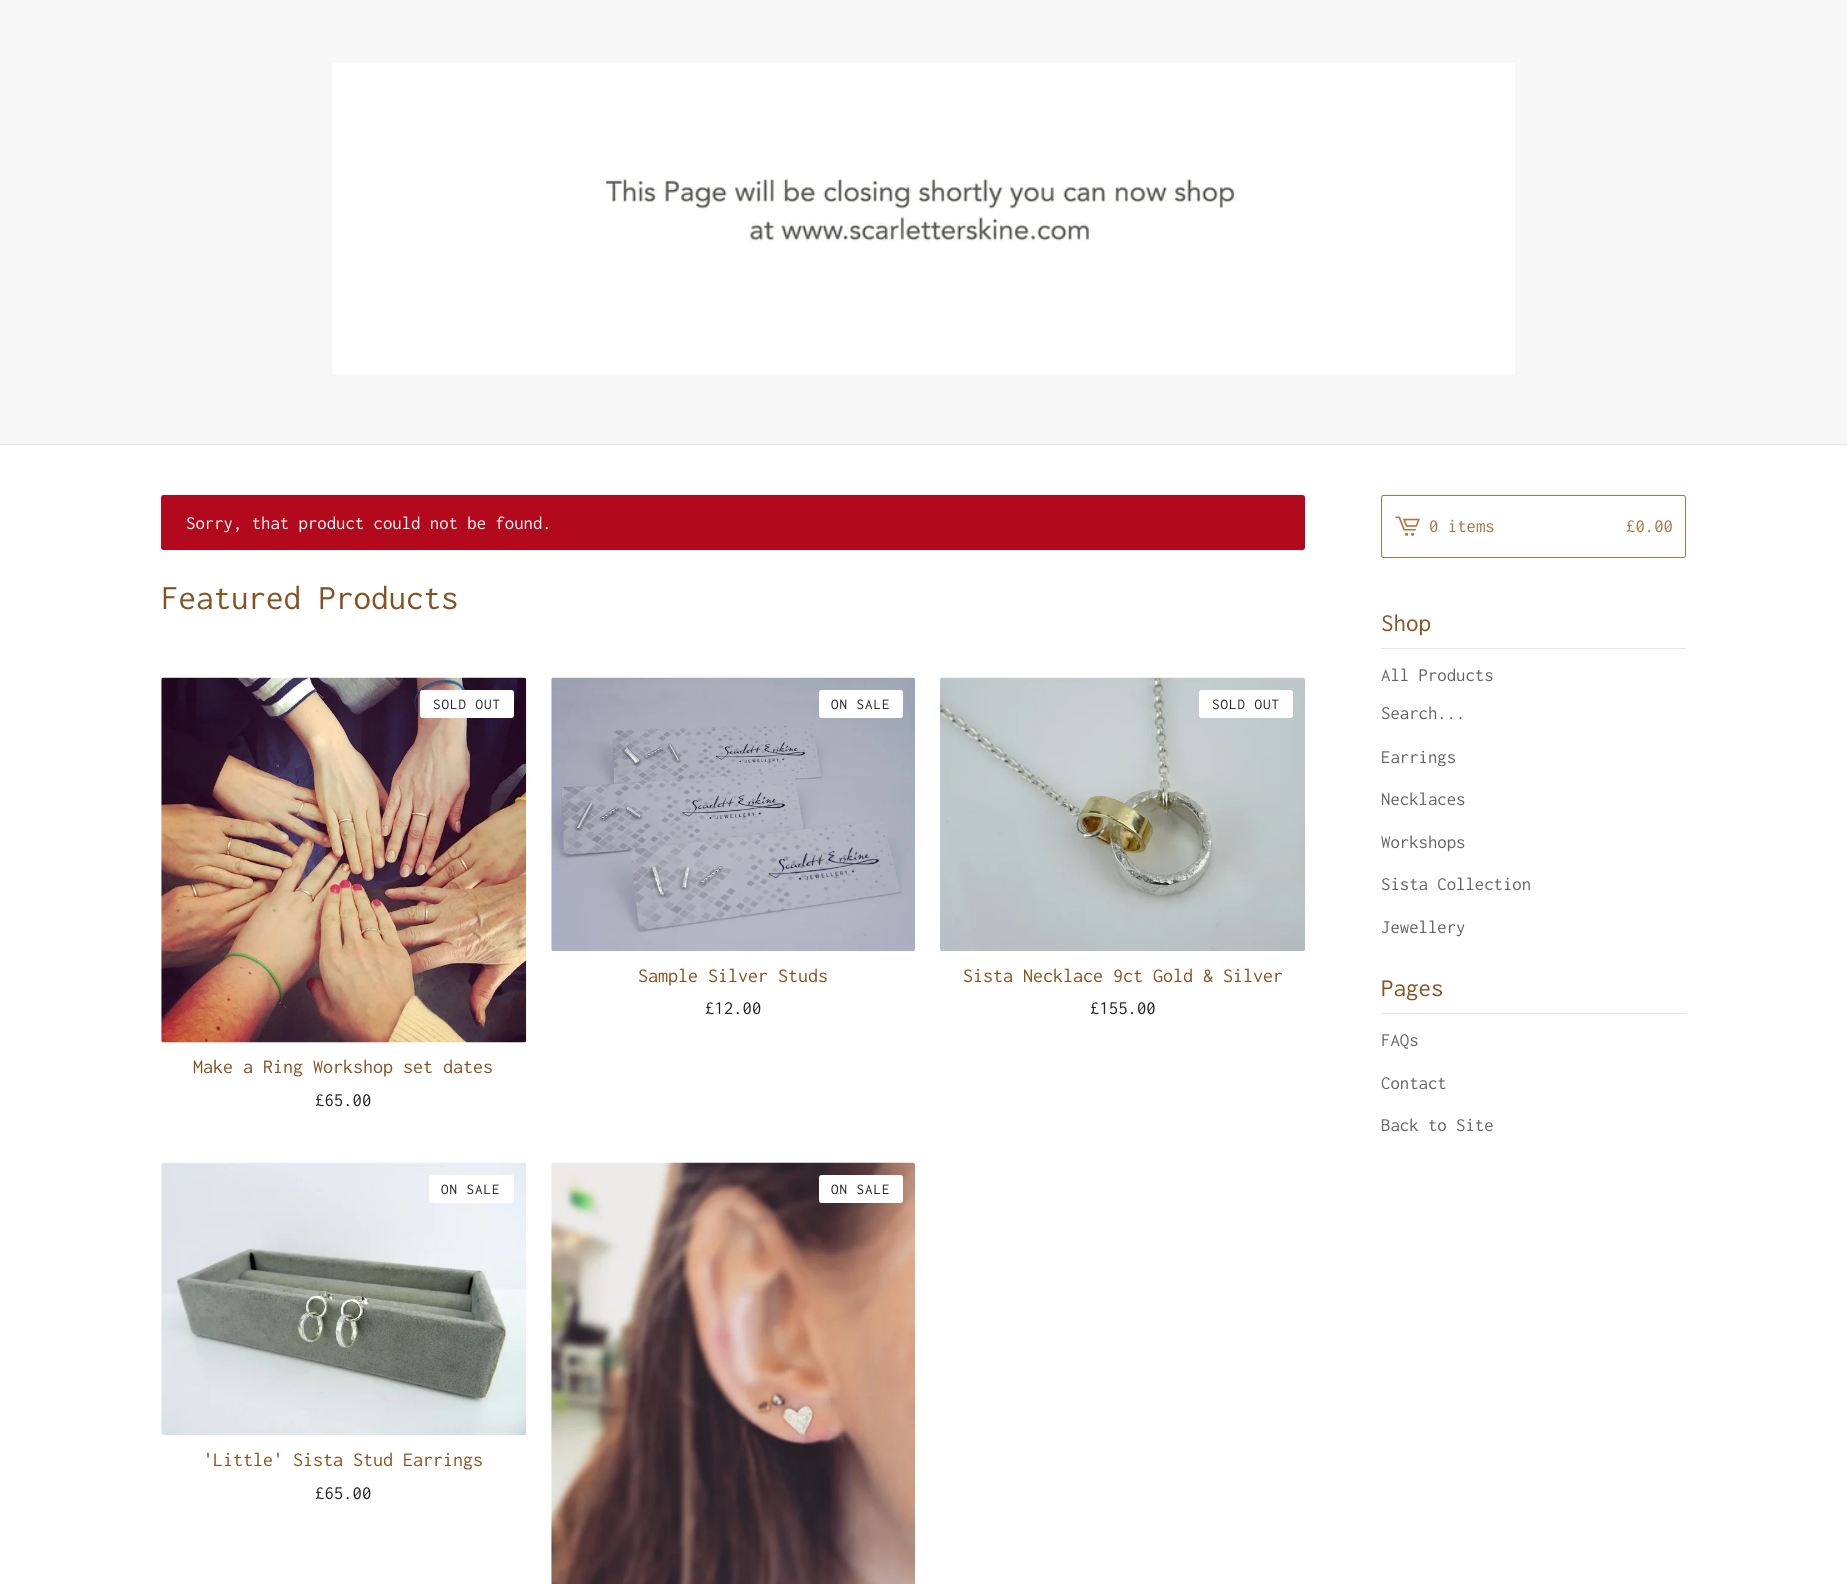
#include <cairo.h>
#include <math.h>
#include <stddef.h>


static void set_color(cairo_t *cr, unsigned color) {
    cairo_set_source_rgb(cr, (color >> 16) / 255.0, (color >> 8 & 255) / 255.0, (color & 255) / 255.0);
}

static void draw_text(cairo_t *cr, double x, double y, const char *s, const char *family, double size, int italic, int bold, unsigned color) {
    cairo_select_font_face(cr, family, italic ? CAIRO_FONT_SLANT_ITALIC : CAIRO_FONT_SLANT_NORMAL,
        bold ? CAIRO_FONT_WEIGHT_BOLD : CAIRO_FONT_WEIGHT_NORMAL);
    cairo_set_font_size(cr, size);
    set_color(cr, color);
    cairo_move_to(cr, x, y);
    cairo_show_text(cr, s);
}

static void draw_spaced(cairo_t *cr, double x, double y, const char *s, double letter, double word) {
    cairo_move_to(cr, x, y);
    while (*s) {
        char ch[5] = {0};
        int n = 0;
        do ch[n++] = *s++; while ((*s & 0xC0) == 0x80);
        cairo_show_text(cr, ch);
        cairo_rel_move_to(cr, letter + word * (*ch == ' '), 0);
    }
}

static void fill_rect(cairo_t *cr, double x, double y, double w, double h, unsigned color) {
    set_color(cr, color);
    cairo_rectangle(cr, x, y, w, h);
    cairo_fill(cr);
}

static void rounded_rect(cairo_t *cr, double x, double y, double w, double h, double r) {
    cairo_new_sub_path(cr);
    cairo_arc(cr, x + w - r, y + h - r, r, 0, M_PI / 2);
    cairo_arc(cr, x + r, y + h - r, r, M_PI / 2, M_PI);
    cairo_arc(cr, x + r, y + r, r, M_PI, 1.5 * M_PI);
    cairo_arc(cr, x + w - r, y + r, r, 1.5 * M_PI, 2 * M_PI);
    cairo_close_path(cr);
}

static void draw_image(cairo_t *cr, const char *path, double x, double y, double w, double h) {
    cairo_surface_t *image = cairo_image_surface_create_from_png(path);
    cairo_save(cr);
    cairo_set_source_surface(cr, image, x, y);
    cairo_rectangle(cr, x, y, w, h);
    cairo_fill(cr);
    cairo_restore(cr);
    cairo_surface_destroy(image);
}

int main(void) {
    cairo_surface_t *surface = cairo_image_surface_create(CAIRO_FORMAT_RGB24, 1847, 1584);
    cairo_t *cr = cairo_create(surface);
    cairo_font_options_t *options = cairo_font_options_create();
    cairo_font_options_set_hint_metrics(options, CAIRO_HINT_METRICS_OFF);
    cairo_font_options_set_hint_style(options, CAIRO_HINT_STYLE_NONE);
    cairo_set_font_options(cr, options);
    cairo_set_miter_limit(cr, 4);
    set_color(cr, 0xFFFFFF);
    cairo_paint(cr);
    fill_rect(cr, 0, 0, 1847, 444, 0xF7F7F7);
    fill_rect(cr, 0, 444, 1847, 1, 0xE5E5E5);
    draw_image(cr, "assets/img1.png", 332, 62, 1183, 313);
    set_color(cr, 0xB3091D);
    rounded_rect(cr, 161, 495, 1144, 55, 2.5);
    cairo_fill(cr);
    draw_text(cr, 186, 529, "Sorry, that product could not be found.", "Inconsolata", 18.75, 0, 0, 0xFFFFFF);
    draw_text(cr, 161, 609, "Featured Products", "Inconsolata", 35, 0, 0, 0x855222);
    draw_image(cr, "assets/img2.png", 161, 677, 366, 366);
    set_color(cr, 0xFFFFFF);
    rounded_rect(cr, 420, 690, 94, 28, 2.5);
    cairo_fill(cr);
    cairo_set_font_size(cr, 15);
    set_color(cr, 0x222222);
    draw_spaced(cr, 433, 709, "SOLD OUT", 1, 0);
    draw_text(cr, 193, 1073, "Make a Ring Workshop set dates", "Inconsolata", 20, 0, 0, 0x855222);
    draw_text(cr, 315, 1106, "£65.00", "Inconsolata", 18.75, 0, 0, 0x222222);
    draw_image(cr, "assets/img3.png", 551, 677, 364, 275);
    set_color(cr, 0xFFFFFF);
    rounded_rect(cr, 819, 690, 84, 28, 2.5);
    cairo_fill(cr);
    cairo_set_font_size(cr, 15);
    set_color(cr, 0x222222);
    draw_spaced(cr, 831, 709, "ON SALE", 1, 0);
    draw_text(cr, 638, 982, "Sample Silver Studs", "Inconsolata", 20, 0, 0, 0x855222);
    draw_text(cr, 705, 1014, "£12.00", "Inconsolata", 18.75, 0, 0, 0x222222);
    draw_image(cr, "assets/img4.png", 940, 677, 365, 275);
    set_color(cr, 0xFFFFFF);
    rounded_rect(cr, 1199, 690, 94, 28, 2.5);
    cairo_fill(cr);
    cairo_set_font_size(cr, 15);
    set_color(cr, 0x222222);
    draw_spaced(cr, 1212, 709, "SOLD OUT", 1, 0);
    draw_text(cr, 963, 982, "Sista Necklace 9ct Gold & Silver", "Inconsolata", 20, 0, 0, 0x855222);
    draw_text(cr, 1090, 1014, "£155.00", "Inconsolata", 18.75, 0, 0, 0x222222);
    draw_image(cr, "assets/img5.png", 161, 1162, 365, 273);
    set_color(cr, 0xFFFFFF);
    rounded_rect(cr, 429, 1175, 85, 28, 2.5);
    cairo_fill(cr);
    cairo_set_font_size(cr, 15);
    set_color(cr, 0x222222);
    draw_spaced(cr, 441, 1194, "ON SALE", 1, 0);
    draw_text(cr, 203, 1466, "'Little' Sista Stud Earrings", "Inconsolata", 20, 0, 0, 0x855222);
    draw_text(cr, 315, 1499, "£65.00", "Inconsolata", 18.75, 0, 0, 0x222222);
    draw_image(cr, "assets/img6.png", 551, 1162, 364, 422);
    set_color(cr, 0xFFFFFF);
    rounded_rect(cr, 819, 1175, 84, 28, 2.5);
    cairo_fill(cr);
    cairo_set_font_size(cr, 15);
    set_color(cr, 0x222222);
    draw_spaced(cr, 831, 1194, "ON SALE", 1, 0);
    rounded_rect(cr, 1381.5, 495.5, 304, 62, 2);
    set_color(cr, 0xA87743);
    cairo_set_line_width(cr, 1);
    cairo_stroke(cr);
    draw_image(cr, "assets/img7.png", 1395, 516, 25, 20);
    draw_text(cr, 1429, 532, "0 items", "Inconsolata", 18.75, 0, 0, 0xA87743);
    draw_text(cr, 1626, 532, "£0.00", "Inconsolata", 18.75, 0, 0, 0xA87743);
    fill_rect(cr, 1381, 648, 305, 1, 0xE5E5E5);
    draw_text(cr, 1381, 631, "Shop", "Inconsolata", 25, 0, 0, 0x855222);
    draw_text(cr, 1381, 681, "All Products", "Inconsolata", 18.75, 0, 0, 0x646464);
    draw_text(cr, 1381, 719, "Search...", "Inconsolata", 18.75, 0, 0, 0x646464);
    draw_text(cr, 1381, 763, "Earrings", "Inconsolata", 18.75, 0, 0, 0x646464);
    draw_text(cr, 1381, 805, "Necklaces", "Inconsolata", 18.75, 0, 0, 0x646464);
    draw_text(cr, 1381, 848, "Workshops", "Inconsolata", 18.75, 0, 0, 0x646464);
    draw_text(cr, 1381, 890, "Sista Collection", "Inconsolata", 18.75, 0, 0, 0x646464);
    draw_text(cr, 1381, 933, "Jewellery", "Inconsolata", 18.75, 0, 0, 0x646464);
    fill_rect(cr, 1381, 1013, 305, 1, 0xE5E5E5);
    draw_text(cr, 1381, 996, "Pages", "Inconsolata", 25, 0, 0, 0x855222);
    draw_text(cr, 1381, 1046, "FAQs", "Inconsolata", 18.75, 0, 0, 0x646464);
    draw_text(cr, 1381, 1089, "Contact", "Inconsolata", 18.75, 0, 0, 0x646464);
    draw_text(cr, 1381, 1131, "Back to Site", "Inconsolata", 18.75, 0, 0, 0x646464);
    cairo_surface_write_to_png(surface, "output.png");
    cairo_font_options_destroy(options);
    cairo_destroy(cr);
    cairo_surface_destroy(surface);
    return 0;
}
